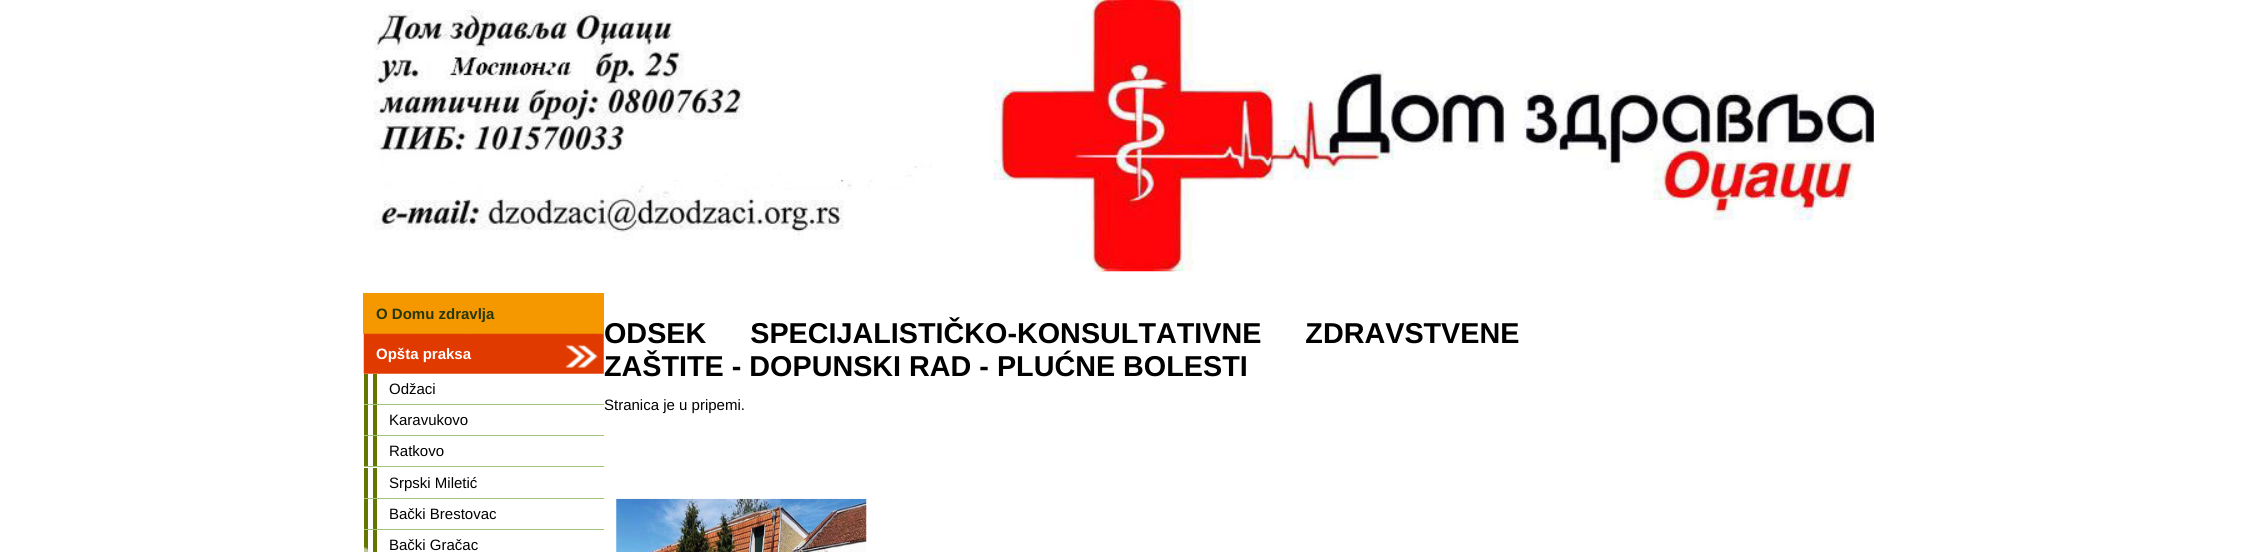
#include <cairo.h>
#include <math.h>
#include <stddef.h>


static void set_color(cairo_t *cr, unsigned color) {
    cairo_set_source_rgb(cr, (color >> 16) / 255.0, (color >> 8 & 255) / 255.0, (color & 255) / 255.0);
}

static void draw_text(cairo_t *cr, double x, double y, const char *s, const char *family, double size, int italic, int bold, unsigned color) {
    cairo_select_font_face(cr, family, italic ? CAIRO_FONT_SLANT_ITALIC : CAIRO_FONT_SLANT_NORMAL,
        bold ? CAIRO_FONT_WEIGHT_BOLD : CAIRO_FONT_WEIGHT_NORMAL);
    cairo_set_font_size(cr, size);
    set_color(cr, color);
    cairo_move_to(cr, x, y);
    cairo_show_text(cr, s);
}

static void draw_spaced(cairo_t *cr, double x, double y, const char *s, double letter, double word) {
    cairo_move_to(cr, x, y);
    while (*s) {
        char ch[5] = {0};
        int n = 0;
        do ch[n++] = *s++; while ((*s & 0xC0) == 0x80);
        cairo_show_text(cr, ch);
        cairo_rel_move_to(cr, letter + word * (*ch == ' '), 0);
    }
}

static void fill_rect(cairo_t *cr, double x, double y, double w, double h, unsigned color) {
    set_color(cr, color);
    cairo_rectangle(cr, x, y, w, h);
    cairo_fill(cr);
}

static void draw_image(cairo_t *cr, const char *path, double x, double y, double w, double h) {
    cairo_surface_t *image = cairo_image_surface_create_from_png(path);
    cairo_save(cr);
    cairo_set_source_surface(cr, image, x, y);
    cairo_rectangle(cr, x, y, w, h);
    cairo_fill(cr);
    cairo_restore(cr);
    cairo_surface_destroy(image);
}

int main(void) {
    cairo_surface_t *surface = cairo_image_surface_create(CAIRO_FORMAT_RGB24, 2247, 552);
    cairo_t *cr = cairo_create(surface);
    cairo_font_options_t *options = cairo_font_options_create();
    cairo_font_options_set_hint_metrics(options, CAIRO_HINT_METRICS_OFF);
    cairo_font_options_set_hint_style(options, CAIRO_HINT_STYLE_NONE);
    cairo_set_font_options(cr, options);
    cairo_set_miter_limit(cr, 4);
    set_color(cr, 0xFFFFFF);
    cairo_paint(cr);
    draw_image(cr, "assets/img1.png", 373, 0, 1501, 272);
    fill_rect(cr, 363, 293, 241, 41, 0xF59800);
    draw_text(cr, 376, 319, "O Domu zdravlja", "Liberation Sans", 15, 0, 1, 0x26370A);
    draw_image(cr, "assets/img2.png", 363, 333, 241, 41);
    draw_text(cr, 376, 359, "Opšta praksa", "Liberation Sans", 15, 0, 1, 0xFFFFFF);
    fill_rect(cr, 364, 404, 240, 1, 0xA1C67B);
    fill_rect(cr, 364, 374, 4, 30, 0x647600);
    fill_rect(cr, 373, 374, 4, 30, 0x647600);
    draw_text(cr, 389, 394, "Odžaci", "Liberation Sans", 15, 0, 0, 0x000000);
    fill_rect(cr, 364, 435, 240, 1, 0xA1C67B);
    fill_rect(cr, 364, 405, 4, 30, 0x647600);
    fill_rect(cr, 373, 405, 4, 30, 0x647600);
    draw_text(cr, 389, 425, "Karavukovo", "Liberation Sans", 15, 0, 0, 0x000000);
    fill_rect(cr, 364, 466, 240, 1, 0xA1C67B);
    fill_rect(cr, 364, 436, 4, 30, 0x647600);
    fill_rect(cr, 373, 436, 4, 30, 0x647600);
    draw_text(cr, 389, 456, "Ratkovo", "Liberation Sans", 15, 0, 0, 0x000000);
    fill_rect(cr, 364, 498, 240, 1, 0xA1C67B);
    fill_rect(cr, 364, 468, 4, 30, 0x647600);
    fill_rect(cr, 373, 468, 4, 30, 0x647600);
    draw_text(cr, 389, 488, "Srpski Miletić", "Liberation Sans", 15, 0, 0, 0x000000);
    fill_rect(cr, 364, 529, 240, 1, 0xA1C67B);
    fill_rect(cr, 364, 499, 4, 30, 0x647600);
    fill_rect(cr, 373, 499, 4, 30, 0x647600);
    draw_text(cr, 389, 519, "Bački Brestovac", "Liberation Sans", 15, 0, 0, 0x000000);
    fill_rect(cr, 364, 530, 4, 22, 0x647600);
    fill_rect(cr, 373, 530, 4, 22, 0x647600);
    draw_text(cr, 389, 550, "Bački Gračac", "Liberation Sans", 15, 0, 0, 0x000000);
    cairo_select_font_face(cr, "Liberation Sans", CAIRO_FONT_SLANT_NORMAL, CAIRO_FONT_WEIGHT_BOLD);
    cairo_set_font_size(cr, 28.75);
    draw_spaced(cr, 604, 343, "ODSEK SPECIJALISTIČKO-KONSULTATIVNE ZDRAVSTVENE", 0, 36);
    draw_text(cr, 604, 376, "ZAŠTITE - DOPUNSKI RAD - PLUĆNE BOLESTI", "Liberation Sans", 28.75, 0, 1, 0x000000);
    draw_text(cr, 604, 410, "Stranica je u pripemi.", "Liberation Sans", 15, 0, 0, 0x000000);
    draw_image(cr, "assets/img3.png", 364, 547, 6, 5);
    draw_image(cr, "assets/img4.png", 616, 498, 251, 54);
    cairo_surface_write_to_png(surface, "output.png");
    cairo_font_options_destroy(options);
    cairo_destroy(cr);
    cairo_surface_destroy(surface);
    return 0;
}
